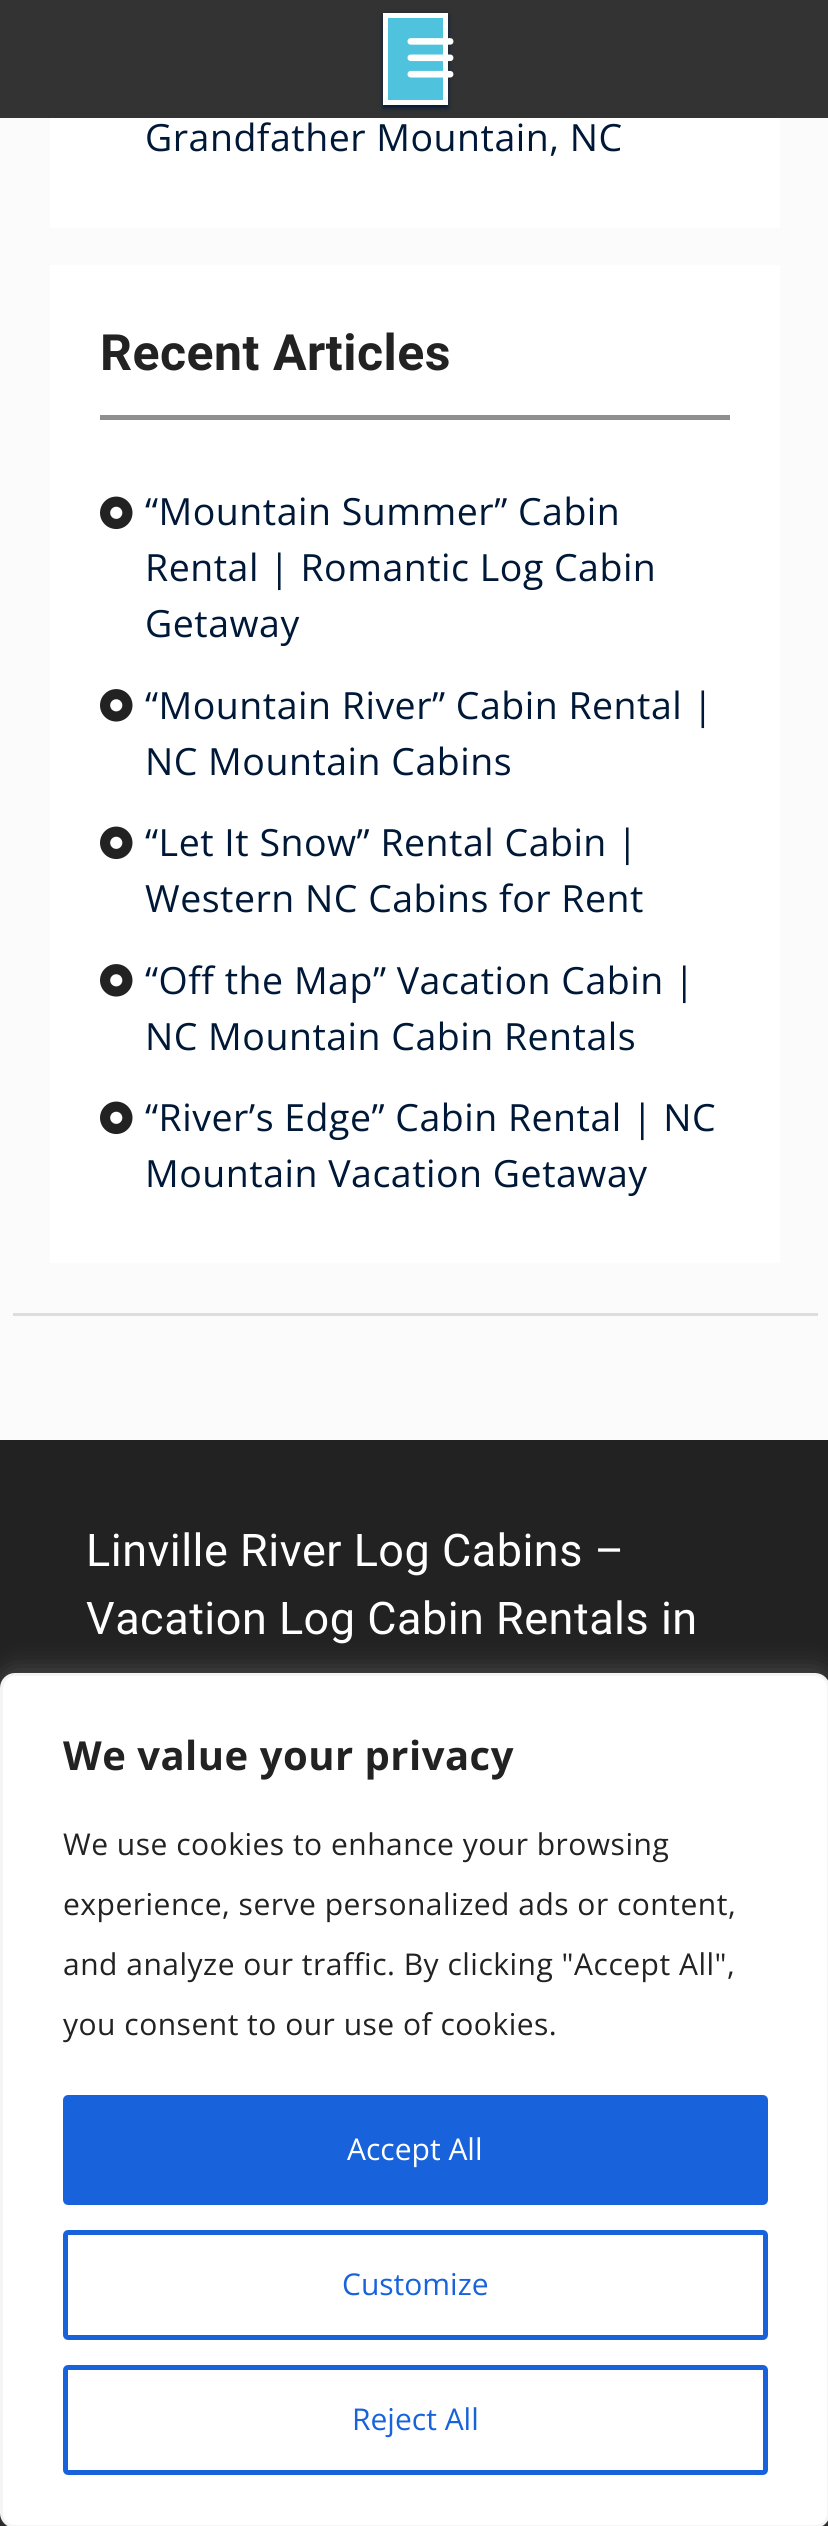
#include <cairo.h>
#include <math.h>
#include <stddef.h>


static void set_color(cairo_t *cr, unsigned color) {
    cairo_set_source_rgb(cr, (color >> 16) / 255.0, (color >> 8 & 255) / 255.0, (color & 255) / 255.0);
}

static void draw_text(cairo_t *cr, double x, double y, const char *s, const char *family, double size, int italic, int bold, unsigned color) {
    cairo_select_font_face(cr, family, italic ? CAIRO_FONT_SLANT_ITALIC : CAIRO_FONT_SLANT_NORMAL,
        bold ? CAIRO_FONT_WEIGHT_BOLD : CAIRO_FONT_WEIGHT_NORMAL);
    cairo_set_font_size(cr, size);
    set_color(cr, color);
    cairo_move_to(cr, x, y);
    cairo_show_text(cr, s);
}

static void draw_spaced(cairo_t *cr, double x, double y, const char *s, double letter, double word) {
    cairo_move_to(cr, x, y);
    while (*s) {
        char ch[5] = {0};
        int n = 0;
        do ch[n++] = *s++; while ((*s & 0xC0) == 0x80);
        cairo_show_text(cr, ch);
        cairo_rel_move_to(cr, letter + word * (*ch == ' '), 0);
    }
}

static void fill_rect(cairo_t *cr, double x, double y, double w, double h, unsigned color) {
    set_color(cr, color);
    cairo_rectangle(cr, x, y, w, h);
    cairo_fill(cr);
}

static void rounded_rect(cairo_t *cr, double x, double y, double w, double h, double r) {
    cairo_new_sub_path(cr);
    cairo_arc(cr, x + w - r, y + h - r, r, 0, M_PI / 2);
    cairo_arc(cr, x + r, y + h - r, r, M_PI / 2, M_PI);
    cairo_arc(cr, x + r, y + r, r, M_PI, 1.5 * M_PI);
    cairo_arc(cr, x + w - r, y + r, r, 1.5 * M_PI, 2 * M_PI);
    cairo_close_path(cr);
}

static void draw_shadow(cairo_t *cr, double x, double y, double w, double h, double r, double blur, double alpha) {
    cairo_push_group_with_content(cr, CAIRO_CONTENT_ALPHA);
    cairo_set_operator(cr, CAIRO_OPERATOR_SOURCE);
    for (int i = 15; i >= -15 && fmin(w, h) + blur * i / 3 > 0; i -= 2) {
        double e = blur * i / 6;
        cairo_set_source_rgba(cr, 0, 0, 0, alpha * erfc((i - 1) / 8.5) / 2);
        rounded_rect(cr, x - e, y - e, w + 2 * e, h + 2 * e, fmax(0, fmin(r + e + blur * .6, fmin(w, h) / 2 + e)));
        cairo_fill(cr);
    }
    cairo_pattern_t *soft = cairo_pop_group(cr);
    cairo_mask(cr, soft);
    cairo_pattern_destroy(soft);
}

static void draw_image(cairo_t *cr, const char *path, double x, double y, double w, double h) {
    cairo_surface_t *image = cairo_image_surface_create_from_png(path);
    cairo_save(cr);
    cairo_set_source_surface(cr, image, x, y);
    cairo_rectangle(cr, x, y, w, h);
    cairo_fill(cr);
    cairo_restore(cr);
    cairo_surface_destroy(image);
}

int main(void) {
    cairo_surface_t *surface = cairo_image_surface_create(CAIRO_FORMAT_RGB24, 828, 2526);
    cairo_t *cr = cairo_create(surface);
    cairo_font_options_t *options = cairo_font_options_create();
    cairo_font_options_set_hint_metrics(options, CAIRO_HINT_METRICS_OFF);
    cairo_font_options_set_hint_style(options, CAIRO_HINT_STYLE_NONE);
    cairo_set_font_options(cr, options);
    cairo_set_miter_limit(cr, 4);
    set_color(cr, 0xFBFBFB);
    cairo_paint(cr);
    fill_rect(cr, 0, 0, 828, 118, 0x333333);
    set_color(cr, 0x001837);
    draw_shadow(cr, 383, 15, 65, 93, 0, 2.5, 1);
    set_color(cr, 0x4FC3DD);
    cairo_rectangle(cr, 385.5, 15.5, 60, 87);
    cairo_fill_preserve(cr);
    set_color(cr, 0xFFFFFE);
    cairo_set_line_width(cr, 5);
    cairo_stroke(cr);
    draw_image(cr, "assets/img1.png", 407, 38, 47, 40);
    fill_rect(cr, 13, 1313, 805, 3, 0xDDDDDD);
    fill_rect(cr, 50, 118, 730, 110, 0xFFFFFF);
    cairo_select_font_face(cr, "Open Sans", CAIRO_FONT_SLANT_NORMAL, CAIRO_FONT_WEIGHT_NORMAL);
    cairo_set_font_size(cr, 37.5);
    set_color(cr, 0x001837);
    draw_spaced(cr, 145, 151, "Grandfather Mountain, NC", 0.5, 0);
    fill_rect(cr, 50, 265, 730, 998, 0xFFFFFF);
    fill_rect(cr, 100, 415, 630, 5, 0x8F8F8F);
    cairo_select_font_face(cr, "Roboto", CAIRO_FONT_SLANT_NORMAL, CAIRO_FONT_WEIGHT_BOLD);
    cairo_set_font_size(cr, 50);
    set_color(cr, 0x222222);
    draw_spaced(cr, 100, 370, "Recent Articles", 0.5, 0);
    draw_image(cr, "assets/img2.png", 100, 496, 33, 34);
    cairo_select_font_face(cr, "Open Sans", CAIRO_FONT_SLANT_NORMAL, CAIRO_FONT_WEIGHT_NORMAL);
    cairo_set_font_size(cr, 37.5);
    set_color(cr, 0x001837);
    draw_spaced(cr, 145, 525, "“Mountain Summer” Cabin", 0.5, 0);
    draw_spaced(cr, 145, 581, "Rental | Romantic Log Cabin", 0.5, 0);
    draw_spaced(cr, 145, 637, "Getaway", 0.5, 0);
    draw_image(cr, "assets/img3.png", 100, 689, 33, 33);
    draw_spaced(cr, 145, 719, "“Mountain River” Cabin Rental |", 0.5, 0);
    draw_spaced(cr, 145, 775, "NC Mountain Cabins", 0.5, 0);
    draw_image(cr, "assets/img2.png", 100, 826, 33, 34);
    draw_spaced(cr, 145, 856, "“Let It Snow” Rental Cabin |", 0.5, 0);
    draw_spaced(cr, 145, 912, "Western NC Cabins for Rent", 0.5, 0);
    draw_image(cr, "assets/img3.png", 100, 964, 33, 33);
    draw_spaced(cr, 145, 994, "“Off the Map” Vacation Cabin |", 0.5, 0);
    draw_spaced(cr, 145, 1050, "NC Mountain Cabin Rentals", 0.5, 0);
    draw_image(cr, "assets/img2.png", 100, 1101, 33, 34);
    draw_spaced(cr, 145, 1131, "“River’s Edge” Cabin Rental | NC", 0.5, 0);
    draw_spaced(cr, 145, 1187, "Mountain Vacation Getaway", 0.5, 0);
    fill_rect(cr, 0, 1440, 828, 1086, 0x222222);
    cairo_select_font_face(cr, "Roboto", CAIRO_FONT_SLANT_NORMAL, CAIRO_FONT_WEIGHT_NORMAL);
    cairo_set_font_size(cr, 45);
    set_color(cr, 0xFFFFFF);
    draw_spaced(cr, 86, 1566, "Linville River Log Cabins –", 0.5, 0);
    draw_spaced(cr, 86, 1634, "Vacation Log Cabin Rentals in", 0.5, 0);
    set_color(cr, 0xACABAB);
    draw_shadow(cr, 0, 1670, 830, 855, 15, 12.5, 0.3);
    set_color(cr, 0xFFFFFF);
    rounded_rect(cr, 1.5, 1674.5, 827, 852, 13.5);
    cairo_fill_preserve(cr);
    set_color(cr, 0xF4F4F4);
    cairo_set_line_width(cr, 3);
    cairo_stroke(cr);
    cairo_select_font_face(cr, "Open Sans", CAIRO_FONT_SLANT_NORMAL, CAIRO_FONT_WEIGHT_BOLD);
    cairo_set_font_size(cr, 40);
    set_color(cr, 0x222222);
    draw_spaced(cr, 63, 1770, "We value your privacy", 0.5, 0);
    cairo_select_font_face(cr, "Open Sans", CAIRO_FONT_SLANT_NORMAL, CAIRO_FONT_WEIGHT_NORMAL);
    cairo_set_font_size(cr, 30);
    draw_spaced(cr, 63, 1855, "We use cookies to enhance your browsing", 0.5, 0);
    draw_spaced(cr, 63, 1915, "experience, serve personalized ads or content,", 0.5, 0);
    draw_spaced(cr, 63, 1975, "and analyze our traffic. By clicking \"Accept All\",", 0.5, 0);
    draw_spaced(cr, 63, 2035, "you consent to our use of cookies.", 0.5, 0);
    set_color(cr, 0x1863DC);
    rounded_rect(cr, 65.5, 2097.5, 700, 105, 2.5);
    cairo_fill_preserve(cr);
    cairo_set_line_width(cr, 5);
    cairo_stroke(cr);
    draw_text(cr, 347, 2160, "Accept All", "Open Sans", 30, 0, 0, 0xFFFFFF);
    rounded_rect(cr, 65.5, 2232.5, 700, 105, 2.5);
    set_color(cr, 0x1863DC);
    cairo_stroke(cr);
    draw_text(cr, 342, 2295, "Customize", "Open Sans", 30, 0, 0, 0x1863DC);
    rounded_rect(cr, 65.5, 2367.5, 700, 105, 2.5);
    cairo_stroke(cr);
    draw_text(cr, 352, 2430, "Reject All", "Open Sans", 30, 0, 0, 0x1863DC);
    cairo_surface_write_to_png(surface, "output.png");
    cairo_font_options_destroy(options);
    cairo_destroy(cr);
    cairo_surface_destroy(surface);
    return 0;
}
